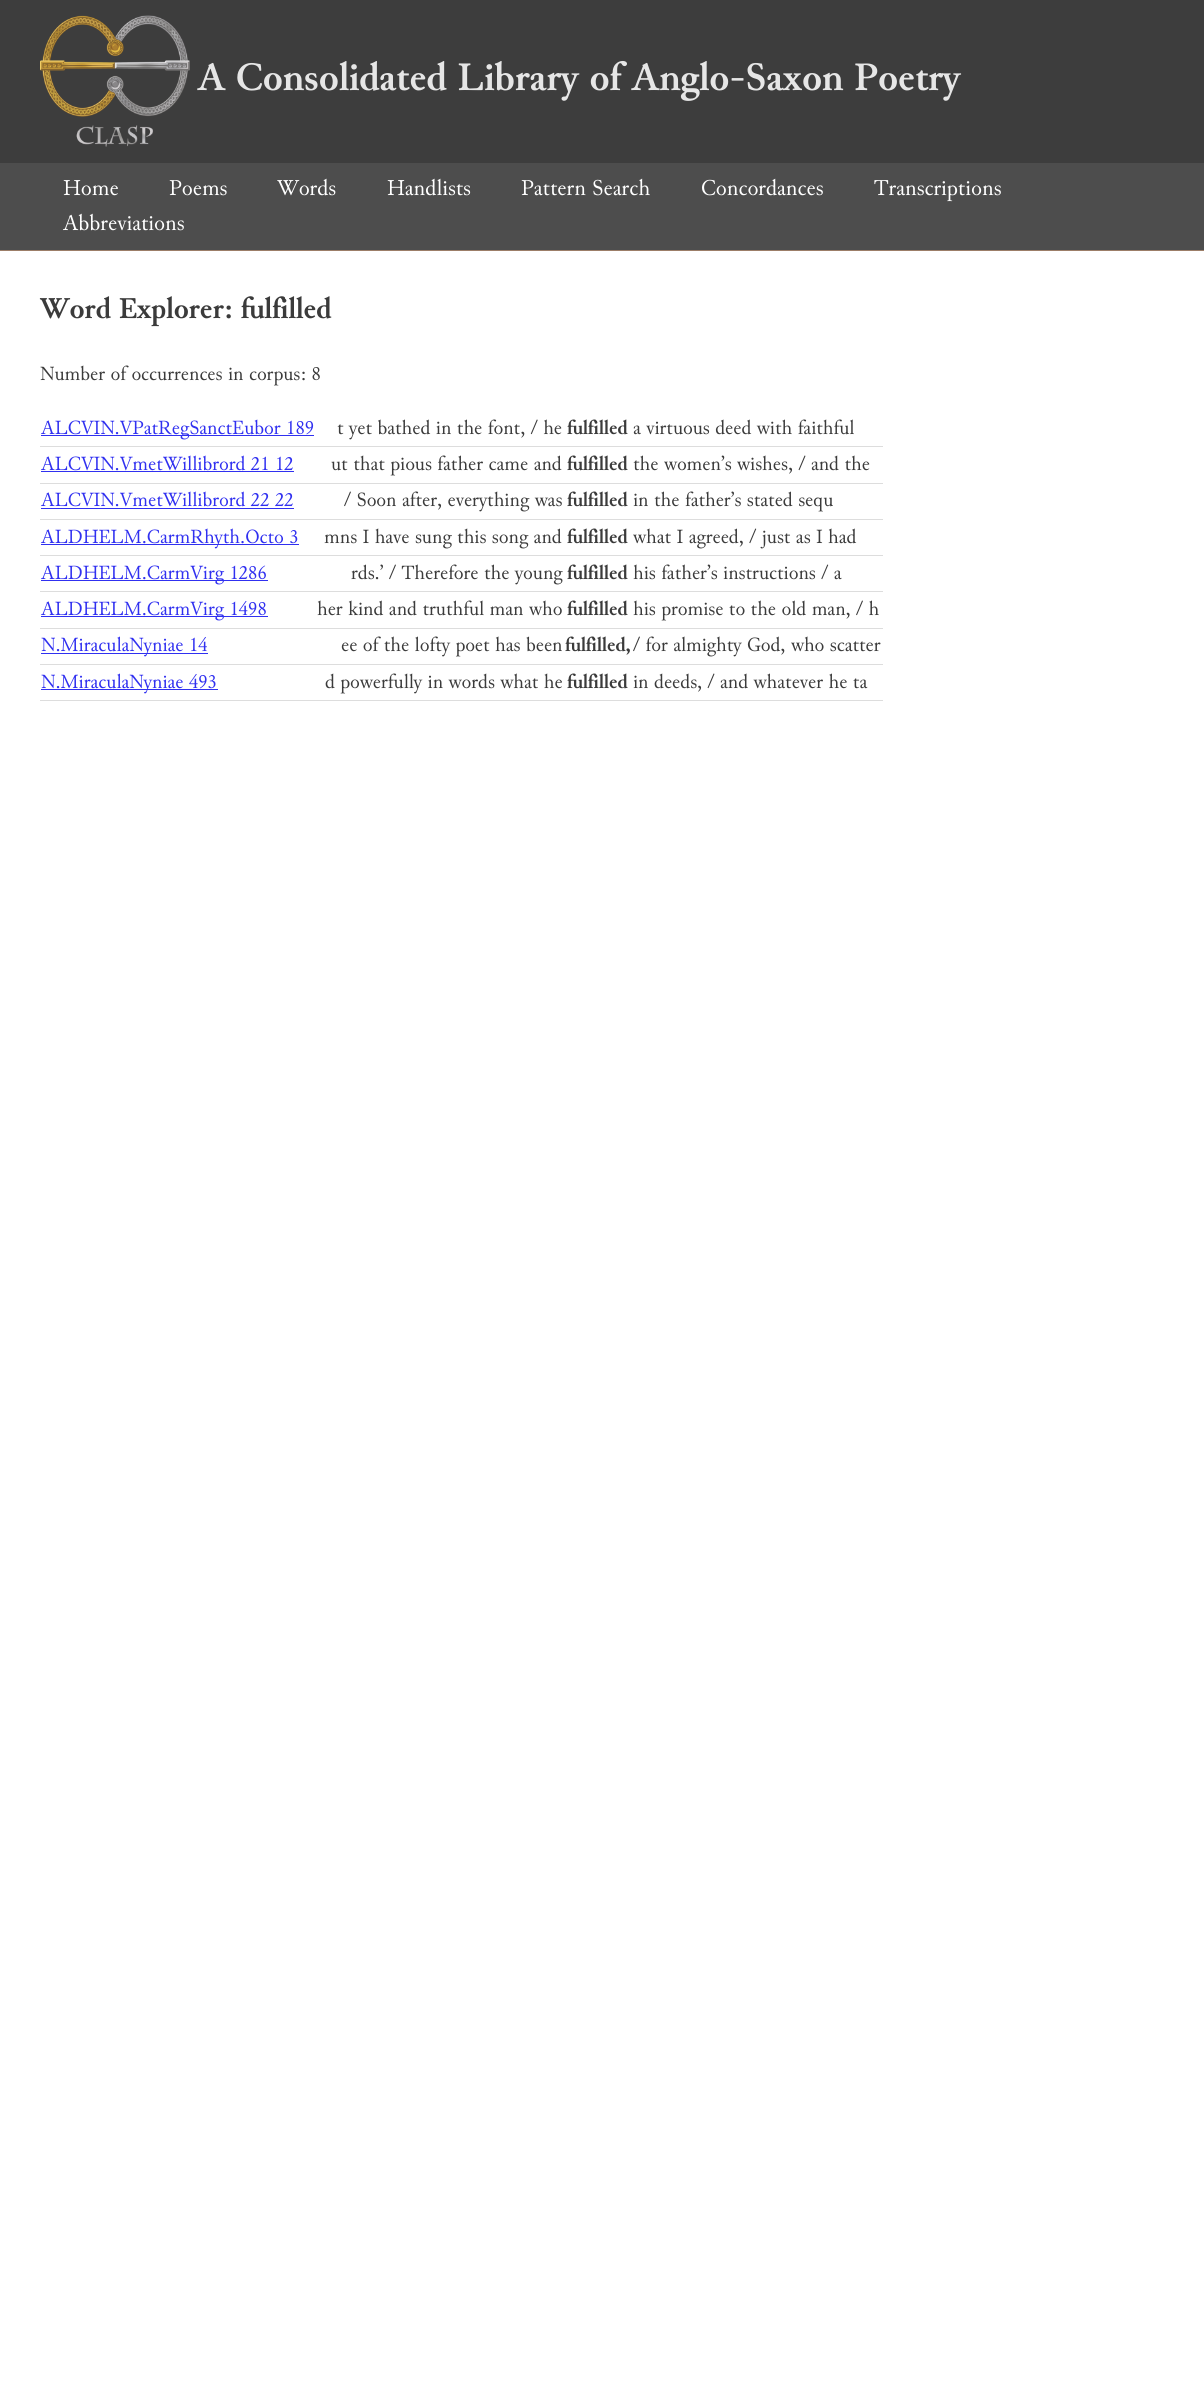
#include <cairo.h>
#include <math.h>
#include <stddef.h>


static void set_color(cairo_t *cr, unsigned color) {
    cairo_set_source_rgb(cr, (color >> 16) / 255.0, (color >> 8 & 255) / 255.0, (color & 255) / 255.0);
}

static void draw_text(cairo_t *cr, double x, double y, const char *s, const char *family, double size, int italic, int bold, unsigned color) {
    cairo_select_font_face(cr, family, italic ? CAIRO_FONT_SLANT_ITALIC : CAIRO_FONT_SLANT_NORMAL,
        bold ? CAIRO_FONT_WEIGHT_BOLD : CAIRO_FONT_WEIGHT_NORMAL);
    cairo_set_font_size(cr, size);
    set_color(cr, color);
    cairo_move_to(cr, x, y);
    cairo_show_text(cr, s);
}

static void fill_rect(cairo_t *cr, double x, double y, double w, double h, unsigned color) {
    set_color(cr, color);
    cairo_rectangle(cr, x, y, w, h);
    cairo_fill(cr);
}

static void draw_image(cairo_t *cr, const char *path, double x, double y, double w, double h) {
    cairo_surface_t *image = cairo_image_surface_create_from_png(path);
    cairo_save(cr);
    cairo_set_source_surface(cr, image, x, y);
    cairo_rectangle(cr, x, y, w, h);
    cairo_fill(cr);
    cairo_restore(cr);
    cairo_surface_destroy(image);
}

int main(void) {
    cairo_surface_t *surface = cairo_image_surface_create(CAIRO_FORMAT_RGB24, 1204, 2385);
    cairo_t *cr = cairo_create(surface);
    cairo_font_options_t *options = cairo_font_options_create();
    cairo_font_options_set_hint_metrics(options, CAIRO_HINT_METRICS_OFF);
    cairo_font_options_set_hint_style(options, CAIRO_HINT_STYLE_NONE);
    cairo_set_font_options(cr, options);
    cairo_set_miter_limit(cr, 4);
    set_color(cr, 0xFFFFFF);
    cairo_paint(cr);
    fill_rect(cr, 0, 0, 1204, 163, 0x3D3D3D);
    draw_image(cr, "assets/img1.png", 40, 15, 150, 132);
    draw_text(cr, 198, 90, "A Consolidated Library of Anglo-Saxon Poetry", "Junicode", 40, 0, 1, 0xE6E6E6);
    fill_rect(cr, 0, 163, 1204, 87, 0x4D4D4D);
    fill_rect(cr, 0, 250, 1204, 1, 0x9C7E68);
    draw_text(cr, 63, 195, "Home", "Junicode", 22.5, 0, 0, 0xFFFFFF);
    draw_text(cr, 169, 195, "Poems", "Junicode", 22.5, 0, 0, 0xFFFFFF);
    draw_text(cr, 277, 195, "Words", "Junicode", 22.5, 0, 0, 0xFFFFFF);
    draw_text(cr, 387, 195, "Handlists", "Junicode", 22.5, 0, 0, 0xFFFFFF);
    draw_text(cr, 521, 195, "Pattern Search", "Junicode", 22.5, 0, 0, 0xFFFFFF);
    draw_text(cr, 701, 195, "Concordances", "Junicode", 22.5, 0, 0, 0xFFFFFF);
    draw_text(cr, 874, 195, "Transcriptions", "Junicode", 22.5, 0, 0, 0xFFFFFF);
    draw_text(cr, 63, 230, "Abbreviations", "Junicode", 22.5, 0, 0, 0xFFFFFF);
    draw_text(cr, 40, 318, "Word Explorer: fulfilled", "Junicode", 30, 0, 1, 0x3B3B3B);
    draw_text(cr, 40, 380, "Number of occurrences in corpus: 8", "Junicode", 20, 0, 0, 0x3B3B3B);
    fill_rect(cr, 41, 435, 273, 1, 0x3030F0);
    draw_text(cr, 41, 434, "ALCVIN.VPatRegSanctEubor 189", "Junicode", 20, 0, 0, 0x3030F0);
    draw_text(cr, 337, 434, "t yet bathed in the font, / he", "Junicode", 20, 0, 0, 0x3B3B3B);
    draw_text(cr, 567, 434, "fulfilled", "Junicode", 20, 0, 1, 0x3B3B3B);
    fill_rect(cr, 40, 446, 843, 1, 0xDDDDDD);
    draw_text(cr, 633, 434, "a virtuous deed with faithful", "Junicode", 20, 0, 0, 0x3B3B3B);
    draw_text(cr, 41, 470, "ALCVIN.VmetWillibrord 21 12", "Junicode", 20, 0, 0, 0x3030F0);
    fill_rect(cr, 41, 471, 253, 1, 0x3030F0);
    draw_text(cr, 331, 470, "ut that pious father came and", "Junicode", 20, 0, 0, 0x3B3B3B);
    draw_text(cr, 567, 470, "fulfilled", "Junicode", 20, 0, 1, 0x3B3B3B);
    fill_rect(cr, 40, 483, 843, 1, 0xDDDDDD);
    draw_text(cr, 633, 470, "the women’s wishes, / and the", "Junicode", 20, 0, 0, 0x3B3B3B);
    draw_text(cr, 41, 506, "ALCVIN.VmetWillibrord 22 22", "Junicode", 20, 0, 0, 0x3030F0);
    fill_rect(cr, 41, 508, 253, 1, 0x3030F0);
    draw_text(cr, 344, 506, "/ Soon after, everything was", "Junicode", 20, 0, 0, 0x3B3B3B);
    draw_text(cr, 567, 506, "fulfilled", "Junicode", 20, 0, 1, 0x3B3B3B);
    fill_rect(cr, 40, 519, 843, 1, 0xDDDDDD);
    draw_text(cr, 633, 506, "in the father’s stated sequ", "Junicode", 20, 0, 0, 0x3B3B3B);
    fill_rect(cr, 41, 544, 258, 1, 0x3030F0);
    draw_text(cr, 41, 543, "ALDHELM.CarmRhyth.Octo 3", "Junicode", 20, 0, 0, 0x3030F0);
    draw_text(cr, 324, 543, "mns I have sung this song and", "Junicode", 20, 0, 0, 0x3B3B3B);
    draw_text(cr, 567, 543, "fulfilled", "Junicode", 20, 0, 1, 0x3B3B3B);
    fill_rect(cr, 40, 555, 843, 1, 0xDDDDDD);
    draw_text(cr, 633, 543, "what I agreed, / just as I had", "Junicode", 20, 0, 0, 0x3B3B3B);
    fill_rect(cr, 41, 580, 227, 1, 0x3030F0);
    draw_text(cr, 41, 579, "ALDHELM.CarmVirg 1286", "Junicode", 20, 0, 0, 0x3030F0);
    draw_text(cr, 351, 579, "rds.’ / Therefore the young", "Junicode", 20, 0, 0, 0x3B3B3B);
    draw_text(cr, 567, 579, "fulfilled", "Junicode", 20, 0, 1, 0x3B3B3B);
    fill_rect(cr, 40, 591, 843, 1, 0xDDDDDD);
    draw_text(cr, 633, 579, "his father’s instructions / a", "Junicode", 20, 0, 0, 0x3B3B3B);
    fill_rect(cr, 41, 616, 227, 1, 0x3030F0);
    draw_text(cr, 41, 615, "ALDHELM.CarmVirg 1498", "Junicode", 20, 0, 0, 0x3030F0);
    draw_text(cr, 317, 615, "her kind and truthful man who", "Junicode", 20, 0, 0, 0x3B3B3B);
    draw_text(cr, 567, 615, "fulfilled", "Junicode", 20, 0, 1, 0x3B3B3B);
    fill_rect(cr, 40, 628, 843, 1, 0xDDDDDD);
    draw_text(cr, 633, 615, "his promise to the old man, / h", "Junicode", 20, 0, 0, 0x3B3B3B);
    fill_rect(cr, 41, 653, 167, 1, 0x3030F0);
    draw_text(cr, 41, 651, "N.MiraculaNyniae 14", "Junicode", 20, 0, 0, 0x3030F0);
    draw_text(cr, 341, 651, "ee of the lofty poet has been", "Junicode", 20, 0, 0, 0x3B3B3B);
    draw_text(cr, 565, 651, "fulfilled,", "Junicode", 20, 0, 1, 0x3B3B3B);
    fill_rect(cr, 40, 664, 843, 1, 0xDDDDDD);
    draw_text(cr, 633, 651, "/ for almighty God, who scatter", "Junicode", 20, 0, 0, 0x3B3B3B);
    fill_rect(cr, 41, 689, 177, 1, 0x3030F0);
    draw_text(cr, 41, 688, "N.MiraculaNyniae 493", "Junicode", 20, 0, 0, 0x3030F0);
    draw_text(cr, 325, 688, "d powerfully in words what he", "Junicode", 20, 0, 0, 0x3B3B3B);
    draw_text(cr, 567, 688, "fulfilled", "Junicode", 20, 0, 1, 0x3B3B3B);
    fill_rect(cr, 40, 700, 843, 1, 0xDDDDDD);
    draw_text(cr, 633, 688, "in deeds, / and whatever he ta", "Junicode", 20, 0, 0, 0x3B3B3B);
    cairo_surface_write_to_png(surface, "output.png");
    cairo_font_options_destroy(options);
    cairo_destroy(cr);
    cairo_surface_destroy(surface);
    return 0;
}
